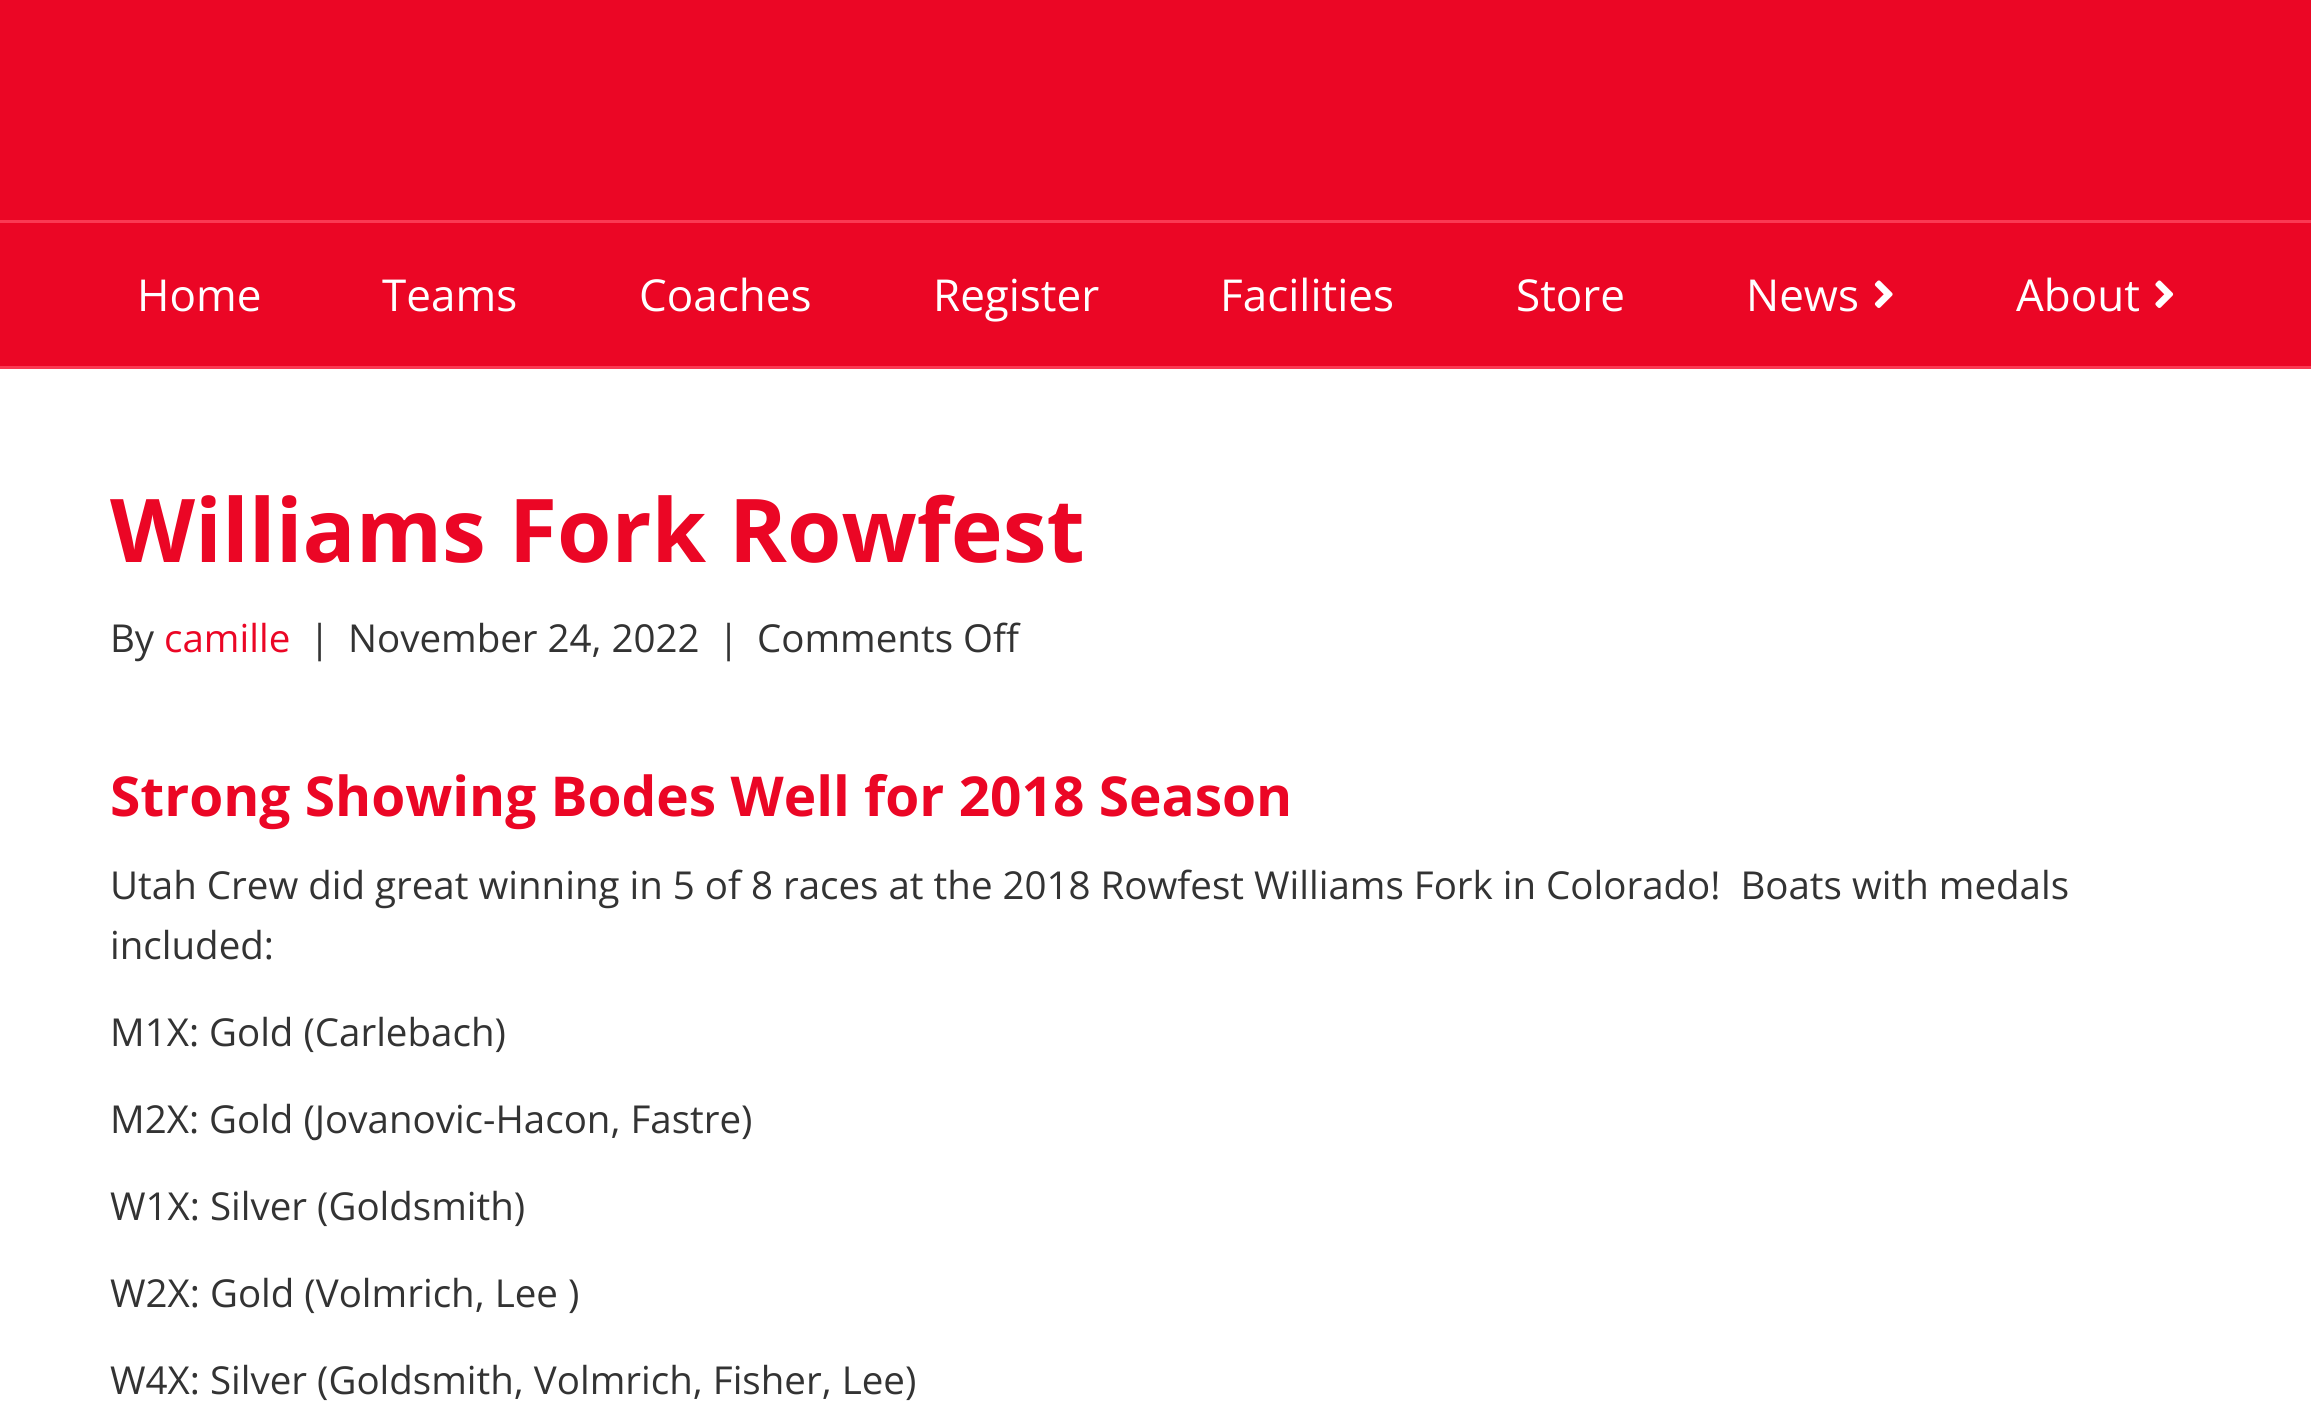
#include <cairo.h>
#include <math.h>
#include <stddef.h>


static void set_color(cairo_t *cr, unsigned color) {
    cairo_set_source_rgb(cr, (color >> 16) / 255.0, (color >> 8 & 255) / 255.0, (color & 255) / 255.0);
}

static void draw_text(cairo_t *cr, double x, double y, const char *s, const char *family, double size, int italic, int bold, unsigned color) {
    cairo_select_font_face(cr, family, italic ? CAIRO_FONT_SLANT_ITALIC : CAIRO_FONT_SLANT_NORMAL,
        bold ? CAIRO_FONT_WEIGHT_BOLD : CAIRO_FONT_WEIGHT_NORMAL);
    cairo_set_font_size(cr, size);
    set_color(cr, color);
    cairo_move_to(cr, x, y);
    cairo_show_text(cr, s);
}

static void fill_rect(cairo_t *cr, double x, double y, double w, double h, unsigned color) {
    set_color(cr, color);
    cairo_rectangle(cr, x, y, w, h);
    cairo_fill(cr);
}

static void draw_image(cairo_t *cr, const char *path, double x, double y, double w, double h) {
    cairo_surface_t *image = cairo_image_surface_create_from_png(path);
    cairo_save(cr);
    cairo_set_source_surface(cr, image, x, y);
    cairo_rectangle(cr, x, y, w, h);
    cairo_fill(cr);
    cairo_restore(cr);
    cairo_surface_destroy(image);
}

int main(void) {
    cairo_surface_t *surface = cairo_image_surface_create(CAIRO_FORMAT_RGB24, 2311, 1412);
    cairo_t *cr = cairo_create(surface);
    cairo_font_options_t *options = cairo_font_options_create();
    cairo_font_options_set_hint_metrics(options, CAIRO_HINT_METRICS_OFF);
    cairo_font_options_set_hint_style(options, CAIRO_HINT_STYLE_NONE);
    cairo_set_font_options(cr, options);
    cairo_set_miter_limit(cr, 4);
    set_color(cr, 0xEB0625);
    cairo_paint(cr);
    fill_rect(cr, 0, 220, 2311, 3, 0xFA3953);
    fill_rect(cr, 0, 366, 2311, 3, 0xFA3953);
    draw_text(cr, 137, 311, "Home", "Open Sans", 44, 0, 0, 0xFFFFFF);
    draw_text(cr, 382, 311, "Teams", "Open Sans", 44, 0, 0, 0xFFFFFF);
    draw_text(cr, 639, 311, "Coaches", "Open Sans", 44, 0, 0, 0xFFFFFF);
    draw_text(cr, 933, 311, "Register", "Open Sans", 44, 0, 0, 0xFFFFFF);
    draw_text(cr, 1220, 311, "Facilities", "Open Sans", 44, 0, 0, 0xFFFFFF);
    draw_text(cr, 1516, 311, "Store", "Open Sans", 44, 0, 0, 0xFFFFFF);
    draw_text(cr, 1746, 311, "News", "Open Sans", 44, 0, 0, 0xFFFFFF);
    draw_image(cr, "assets/img1.png", 1874, 280, 19, 28);
    draw_text(cr, 2016, 311, "About", "Open Sans", 44, 0, 0, 0xFFFFFF);
    draw_image(cr, "assets/img2.png", 2155, 280, 19, 28);
    fill_rect(cr, 0, 369, 2311, 1043, 0xFFFFFF);
    draw_text(cr, 110, 562, "Williams Fork Rowfest", "Open Sans", 88, 0, 1, 0xEB0625);
    draw_text(cr, 110, 652, "By", "Open Sans", 38.5, 0, 0, 0x333333);
    draw_text(cr, 164, 652, "camille", "Open Sans", 38.5, 0, 0, 0xEB0625);
    draw_text(cr, 309, 652, "|", "Open Sans", 38.5, 0, 0, 0x333333);
    draw_text(cr, 348, 652, "November 24, 2022", "Open Sans", 38.5, 0, 0, 0x333333);
    draw_text(cr, 718, 652, "|", "Open Sans", 38.5, 0, 0, 0x333333);
    draw_text(cr, 757, 652, "Comments Off", "Open Sans", 38.5, 0, 0, 0x333333);
    draw_text(cr, 110, 816, "Strong Showing Bodes Well for 2018 Season", "Open Sans", 55, 0, 1, 0xEB0625);
    draw_text(cr, 110, 899, "Utah Crew did great winning in 5 of 8 races at the 2018 Rowfest Williams Fork in Colorado!  Boats with medals", "Open Sans", 38.5, 0, 0, 0x333333);
    draw_text(cr, 110, 959, "included:", "Open Sans", 38.5, 0, 0, 0x333333);
    draw_text(cr, 110, 1046, "M1X: Gold (Carlebach)", "Open Sans", 38.5, 0, 0, 0x333333);
    draw_text(cr, 110, 1133, "M2X: Gold (Jovanovic-Hacon, Fastre)", "Open Sans", 38.5, 0, 0, 0x333333);
    draw_text(cr, 110, 1220, "W1X: Silver (Goldsmith)", "Open Sans", 38.5, 0, 0, 0x333333);
    draw_text(cr, 110, 1307, "W2X: Gold (Volmrich, Lee )", "Open Sans", 38.5, 0, 0, 0x333333);
    draw_text(cr, 110, 1394, "W4X: Silver (Goldsmith, Volmrich, Fisher, Lee)", "Open Sans", 38.5, 0, 0, 0x333333);
    cairo_surface_write_to_png(surface, "output.png");
    cairo_font_options_destroy(options);
    cairo_destroy(cr);
    cairo_surface_destroy(surface);
    return 0;
}
